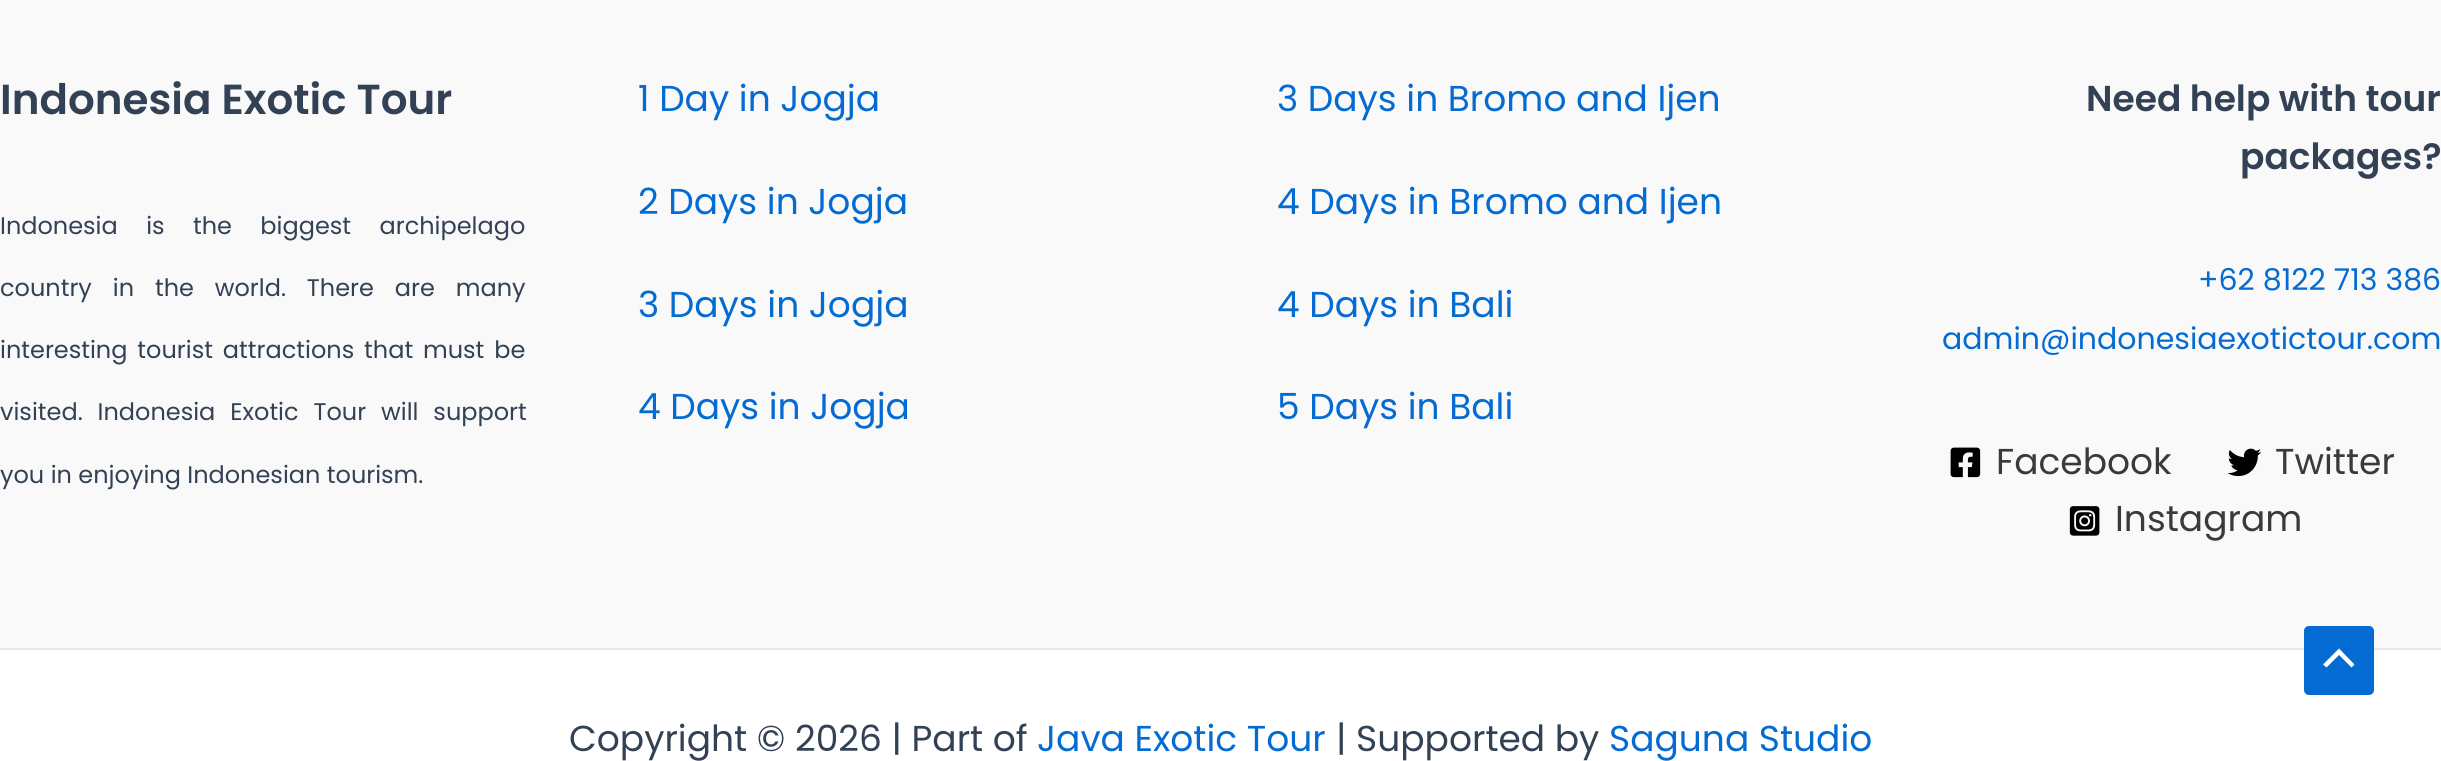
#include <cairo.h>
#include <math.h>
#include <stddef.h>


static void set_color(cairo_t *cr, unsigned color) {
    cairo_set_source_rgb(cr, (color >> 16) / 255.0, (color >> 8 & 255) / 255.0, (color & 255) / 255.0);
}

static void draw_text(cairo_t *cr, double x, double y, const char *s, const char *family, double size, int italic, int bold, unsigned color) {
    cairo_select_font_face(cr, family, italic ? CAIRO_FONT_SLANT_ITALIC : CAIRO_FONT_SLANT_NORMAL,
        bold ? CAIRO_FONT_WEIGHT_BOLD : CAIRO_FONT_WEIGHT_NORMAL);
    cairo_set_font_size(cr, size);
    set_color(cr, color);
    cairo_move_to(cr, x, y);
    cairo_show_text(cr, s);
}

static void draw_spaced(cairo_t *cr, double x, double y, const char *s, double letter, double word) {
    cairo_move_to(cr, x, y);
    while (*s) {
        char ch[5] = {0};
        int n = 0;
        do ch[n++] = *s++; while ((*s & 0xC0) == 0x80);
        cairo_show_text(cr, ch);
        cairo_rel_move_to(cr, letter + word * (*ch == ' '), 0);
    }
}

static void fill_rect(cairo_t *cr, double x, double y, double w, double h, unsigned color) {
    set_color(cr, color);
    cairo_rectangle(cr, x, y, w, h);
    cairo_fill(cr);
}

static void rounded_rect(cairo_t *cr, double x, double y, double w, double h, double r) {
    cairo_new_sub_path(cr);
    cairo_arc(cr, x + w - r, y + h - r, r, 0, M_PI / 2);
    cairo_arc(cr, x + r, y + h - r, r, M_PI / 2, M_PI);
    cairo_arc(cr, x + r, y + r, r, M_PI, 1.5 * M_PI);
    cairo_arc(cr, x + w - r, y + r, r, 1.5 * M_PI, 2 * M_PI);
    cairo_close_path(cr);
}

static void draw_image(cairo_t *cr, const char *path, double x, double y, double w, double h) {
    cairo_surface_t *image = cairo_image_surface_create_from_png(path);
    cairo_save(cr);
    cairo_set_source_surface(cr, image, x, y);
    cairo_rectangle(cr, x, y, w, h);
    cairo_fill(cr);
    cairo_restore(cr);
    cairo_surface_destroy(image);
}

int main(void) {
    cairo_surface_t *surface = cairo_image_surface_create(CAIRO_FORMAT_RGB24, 2441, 761);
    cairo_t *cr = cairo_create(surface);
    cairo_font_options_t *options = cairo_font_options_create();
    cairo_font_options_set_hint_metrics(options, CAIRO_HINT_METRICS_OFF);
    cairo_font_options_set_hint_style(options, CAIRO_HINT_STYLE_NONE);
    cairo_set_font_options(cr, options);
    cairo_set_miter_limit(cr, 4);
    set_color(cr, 0xF9F9F9);
    cairo_paint(cr);
    draw_text(cr, 0, 114, "Indonesia Exotic Tour", "Poppins SemiBold", 42, 0, 0, 0x334155);
    cairo_select_font_face(cr, "Poppins", CAIRO_FONT_SLANT_NORMAL, CAIRO_FONT_WEIGHT_NORMAL);
    cairo_set_font_size(cr, 24);
    draw_spaced(cr, 0, 234, "Indonesia is the biggest archipelago", 0, 22);
    draw_spaced(cr, 0, 296, "country in the world. There are many", 0, 14.5);
    draw_spaced(cr, 0, 358, "interesting tourist attractions that must be", 0, 3.5);
    draw_spaced(cr, 0, 420, "visited. Indonesia Exotic Tour will support", 0, 8.5);
    draw_text(cr, 0, 483, "you in enjoying Indonesian tourism.", "Poppins", 24, 0, 0, 0x334155);
    draw_text(cr, 638, 111, "1 Day in Jogja", "Poppins", 36, 0, 0, 0x046BD2);
    draw_text(cr, 638, 214, "2 Days in Jogja", "Poppins", 36, 0, 0, 0x046BD2);
    draw_text(cr, 638, 317, "3 Days in Jogja", "Poppins", 36, 0, 0, 0x046BD2);
    draw_text(cr, 638, 419, "4 Days in Jogja", "Poppins", 36, 0, 0, 0x046BD2);
    draw_text(cr, 1277, 111, "3 Days in Bromo and Ijen", "Poppins", 36, 0, 0, 0x046BD2);
    draw_text(cr, 1277, 214, "4 Days in Bromo and Ijen", "Poppins", 36, 0, 0, 0x046BD2);
    draw_text(cr, 1277, 317, "4 Days in Bali", "Poppins", 36, 0, 0, 0x046BD2);
    draw_text(cr, 1277, 419, "5 Days in Bali", "Poppins", 36, 0, 0, 0x046BD2);
    draw_text(cr, 2086, 111, "Need help with tour", "Poppins SemiBold", 36, 0, 0, 0x334155);
    draw_text(cr, 2240, 169, "packages?", "Poppins SemiBold", 36, 0, 0, 0x334155);
    draw_text(cr, 2198, 290, "+62 8122 713 386", "Poppins", 30, 0, 0, 0x046BD2);
    draw_text(cr, 1942, 349, "admin@indonesiaexotictour.com", "Poppins", 30, 0, 0, 0x046BD2);
    draw_image(cr, "assets/img1.png", 1950, 447, 31, 31);
    draw_text(cr, 1996, 474, "Facebook", "Poppins", 36, 0, 0, 0x3A3A3A);
    draw_image(cr, "assets/img2.png", 2228, 448, 33, 29);
    draw_text(cr, 2275, 474, "Twitter", "Poppins", 36, 0, 0, 0x3A3A3A);
    draw_image(cr, "assets/img3.png", 2069, 506, 31, 30);
    draw_text(cr, 2115, 531, "Instagram", "Poppins", 36, 0, 0, 0x3A3A3A);
    fill_rect(cr, 0, 650, 2441, 111, 0xFFFFFF);
    fill_rect(cr, 0, 648, 2441, 2, 0xE2E8F0);
    draw_text(cr, 569, 751, "Copyright © 2026 | Part of", "Poppins", 36, 0, 0, 0x334155);
    draw_text(cr, 1037, 751, "Java Exotic Tour", "Poppins", 36, 0, 0, 0x046BD2);
    draw_text(cr, 1336, 751, "| Supported by", "Poppins", 36, 0, 0, 0x334155);
    draw_text(cr, 1609, 751, "Saguna Studio", "Poppins", 36, 0, 0, 0x046BD2);
    rounded_rect(cr, 2304, 626, 70, 69, 5);
    cairo_fill(cr);
    set_color(cr, 0xFFFFFF);
    cairo_new_path(cr);
    cairo_move_to(cr, 2354.5, 664.5);
    cairo_line_to(cr, 2339, 648.5);
    cairo_line_to(cr, 2323, 664.5);
    cairo_line_to(cr, 2326.5, 667.5);
    cairo_line_to(cr, 2339, 655);
    cairo_line_to(cr, 2351.5, 667.5);
    cairo_close_path(cr);
    cairo_fill(cr);
    cairo_surface_write_to_png(surface, "output.png");
    cairo_font_options_destroy(options);
    cairo_destroy(cr);
    cairo_surface_destroy(surface);
    return 0;
}
